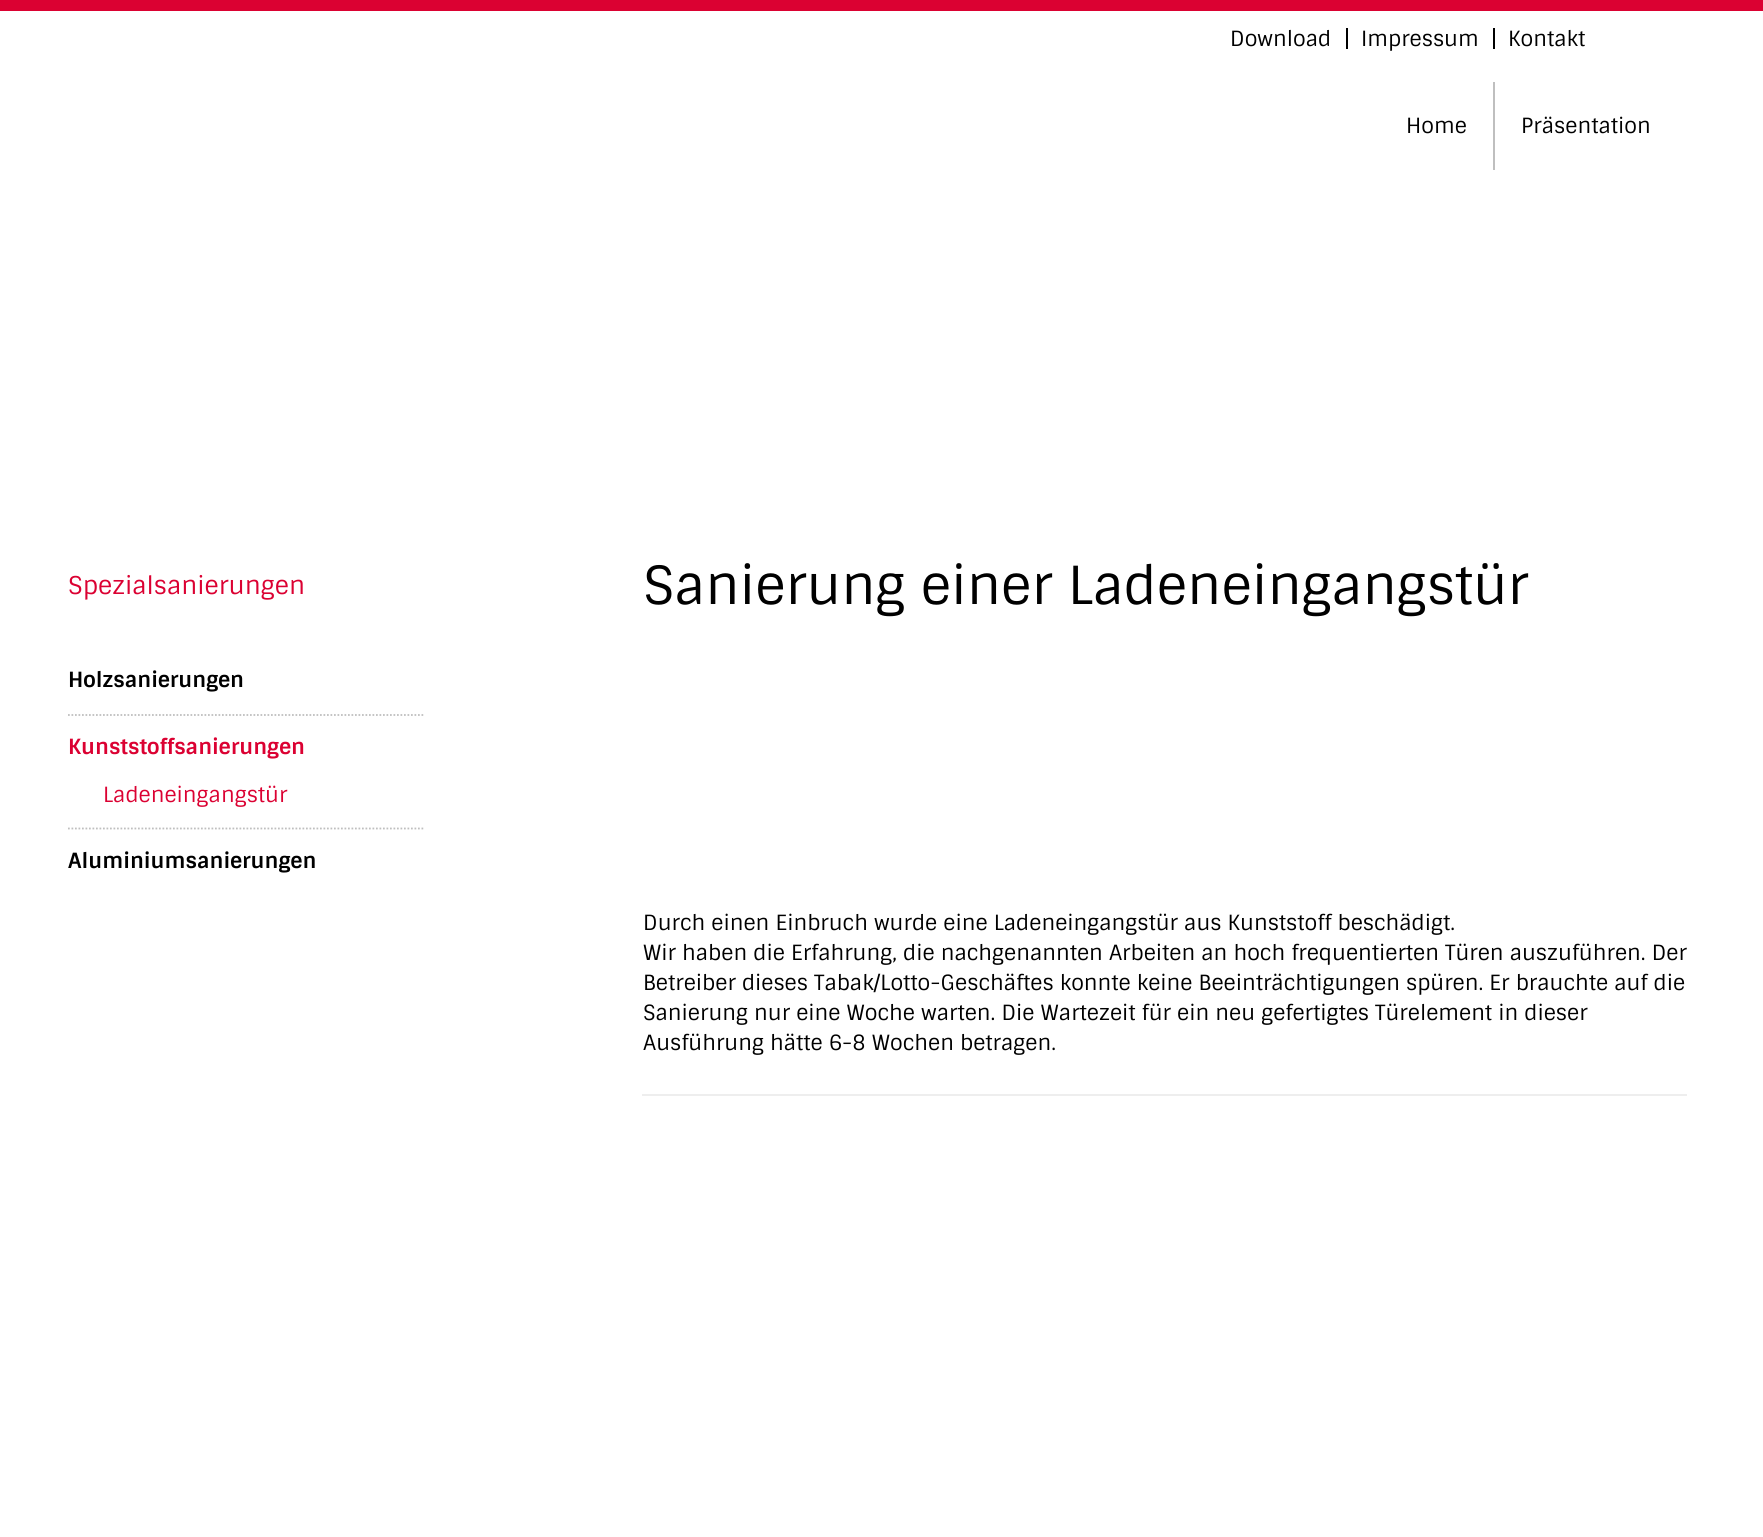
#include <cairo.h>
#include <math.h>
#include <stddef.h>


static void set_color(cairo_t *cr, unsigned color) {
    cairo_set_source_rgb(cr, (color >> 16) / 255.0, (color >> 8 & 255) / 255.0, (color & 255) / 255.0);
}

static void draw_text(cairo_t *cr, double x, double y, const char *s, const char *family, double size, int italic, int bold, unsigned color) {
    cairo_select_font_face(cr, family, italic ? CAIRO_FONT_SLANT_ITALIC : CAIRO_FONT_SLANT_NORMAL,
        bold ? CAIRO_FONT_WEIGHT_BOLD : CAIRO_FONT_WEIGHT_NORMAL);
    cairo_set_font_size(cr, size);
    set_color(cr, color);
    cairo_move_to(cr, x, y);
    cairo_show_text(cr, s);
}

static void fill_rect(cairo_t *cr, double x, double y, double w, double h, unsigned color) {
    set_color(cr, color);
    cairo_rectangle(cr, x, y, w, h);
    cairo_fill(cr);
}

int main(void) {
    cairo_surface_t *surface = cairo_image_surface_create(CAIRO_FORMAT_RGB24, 1763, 1537);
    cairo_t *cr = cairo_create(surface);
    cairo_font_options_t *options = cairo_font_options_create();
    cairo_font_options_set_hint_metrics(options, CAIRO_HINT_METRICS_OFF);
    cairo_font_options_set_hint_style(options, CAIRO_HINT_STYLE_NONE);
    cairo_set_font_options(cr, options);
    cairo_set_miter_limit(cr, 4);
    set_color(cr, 0xFFFFFF);
    cairo_paint(cr);
    fill_rect(cr, 0, 0, 1763, 11, 0xDB0132);
    fill_rect(cr, 1346, 28, 2, 21, 0x000000);
    draw_text(cr, 1230, 46, "Download", "Sintony", 21, 0, 0, 0x000000);
    fill_rect(cr, 1493, 28, 2, 21, 0x000000);
    draw_text(cr, 1361, 46, "Impressum", "Sintony", 21, 0, 0, 0x000000);
    draw_text(cr, 1508, 46, "Kontakt", "Sintony", 21, 0, 0, 0x000000);
    fill_rect(cr, 1493, 82, 2, 88, 0xBFBFBF);
    draw_text(cr, 1406, 133, "Home", "Sintony", 21, 0, 0, 0x000000);
    draw_text(cr, 1521, 133, "Präsentation", "Sintony", 21, 0, 0, 0x000000);
    draw_text(cr, 68, 594, "Spezialsanierungen", "Sintony", 24.5, 0, 0, 0xDB0132);
    cairo_new_path(cr);
    cairo_move_to(cr, 68, 715);
    cairo_line_to(cr, 423.5, 715);
    set_color(cr, 0xBFBFBF);
    cairo_set_line_width(cr, 1.8);
    cairo_set_dash(cr, (double[]){1.75, 1.75}, 2, 0);
    cairo_stroke(cr);
    draw_text(cr, 68, 687, "Holzsanierungen", "Sintony", 21, 0, 1, 0x000000);
    cairo_new_path(cr);
    cairo_move_to(cr, 68, 828.5);
    cairo_line_to(cr, 423.5, 828.5);
    set_color(cr, 0xBFBFBF);
    cairo_stroke(cr);
    draw_text(cr, 68, 754, "Kunststoffsanierungen", "Sintony", 21, 0, 1, 0xDB0132);
    draw_text(cr, 103, 802, "Ladeneingangstür", "Sintony", 21, 0, 0, 0xDB0132);
    draw_text(cr, 68, 868, "Aluminiumsanierungen", "Sintony", 21, 0, 1, 0x000000);
    draw_text(cr, 643, 604, "Sanierung einer Ladeneingangstür", "Sintony", 52.5, 0, 0, 0x000000);
    draw_text(cr, 643, 930, "Durch einen Einbruch wurde eine Ladeneingangstür aus Kunststoff beschädigt.", "Sintony", 21, 0, 0, 0x000000);
    draw_text(cr, 643, 960, "Wir haben die Erfahrung, die nachgenannten Arbeiten an hoch frequentierten Türen auszuführen. Der", "Sintony", 21, 0, 0, 0x000000);
    draw_text(cr, 643, 990, "Betreiber dieses Tabak/Lotto-Geschäftes konnte keine Beeinträchtigungen spüren. Er brauchte auf die", "Sintony", 21, 0, 0, 0x000000);
    draw_text(cr, 643, 1020, "Sanierung nur eine Woche warten. Die Wartezeit für ein neu gefertigtes Türelement in dieser", "Sintony", 21, 0, 0, 0x000000);
    draw_text(cr, 643, 1050, "Ausführung hätte 6-8 Wochen betragen.", "Sintony", 21, 0, 0, 0x000000);
    fill_rect(cr, 642, 1094, 1045, 2, 0xEEEEEE);
    cairo_surface_write_to_png(surface, "output.png");
    cairo_font_options_destroy(options);
    cairo_destroy(cr);
    cairo_surface_destroy(surface);
    return 0;
}
